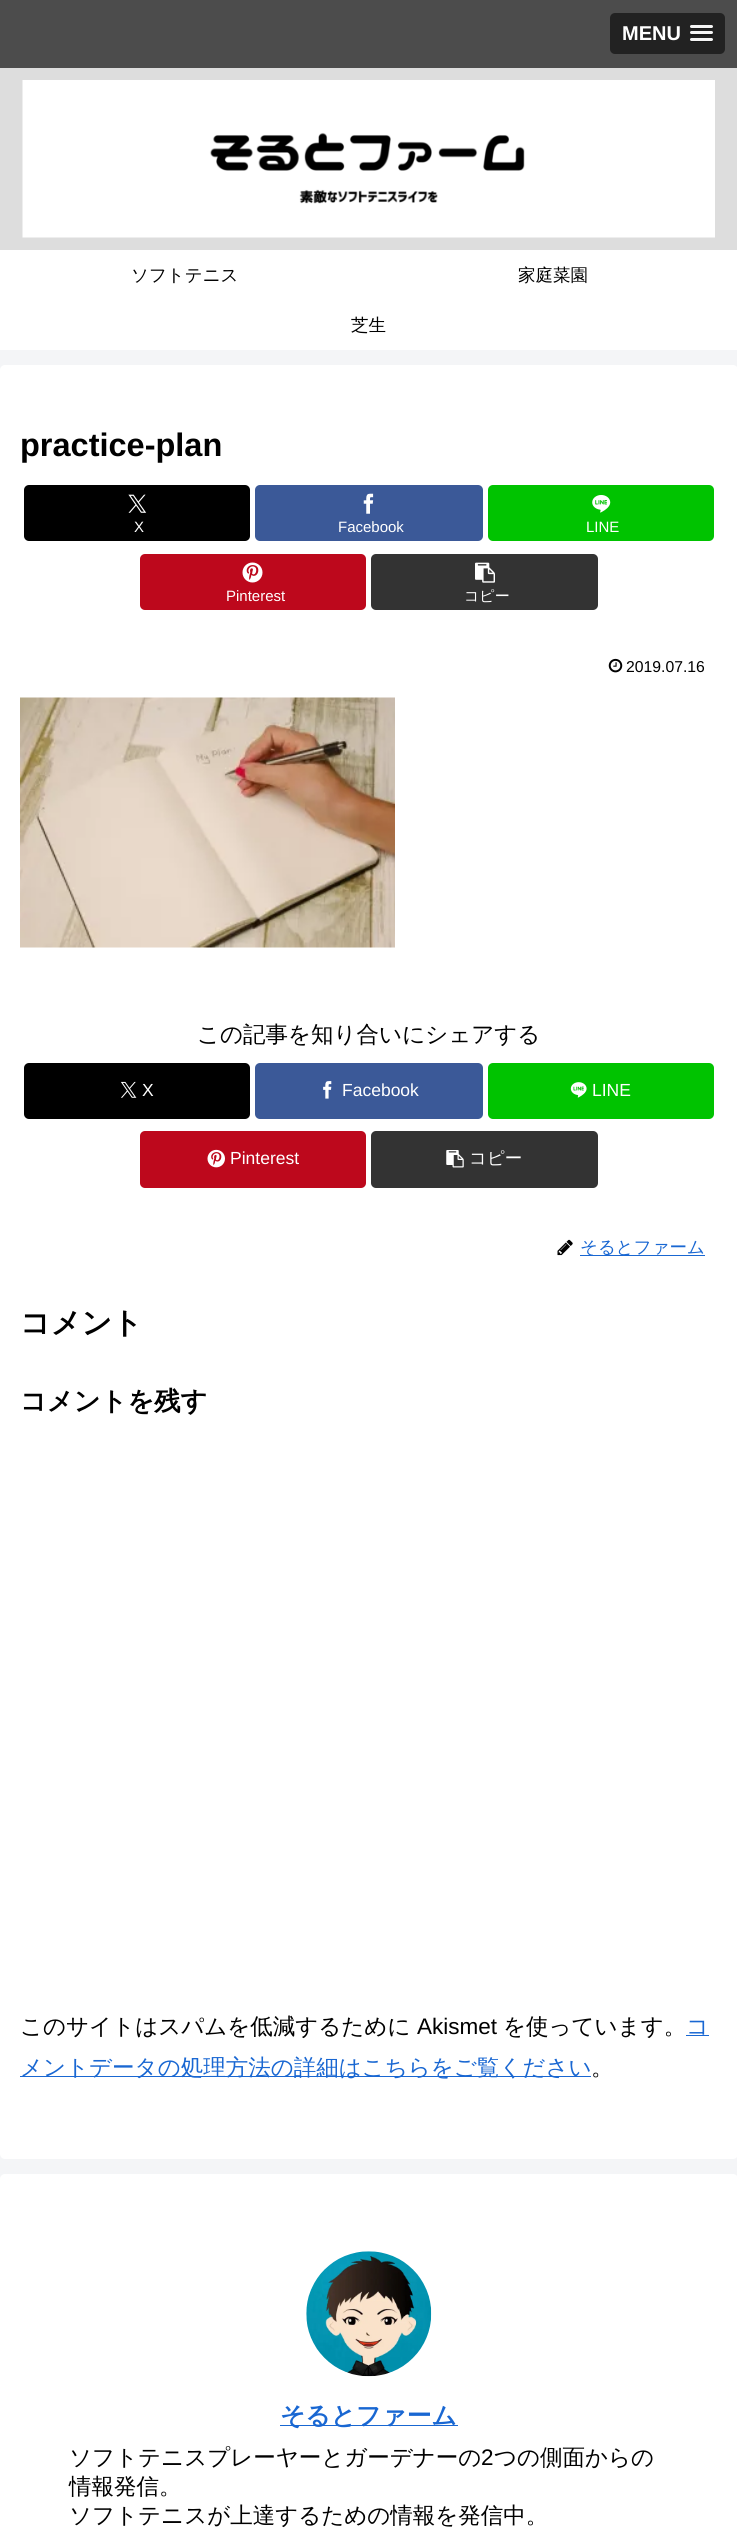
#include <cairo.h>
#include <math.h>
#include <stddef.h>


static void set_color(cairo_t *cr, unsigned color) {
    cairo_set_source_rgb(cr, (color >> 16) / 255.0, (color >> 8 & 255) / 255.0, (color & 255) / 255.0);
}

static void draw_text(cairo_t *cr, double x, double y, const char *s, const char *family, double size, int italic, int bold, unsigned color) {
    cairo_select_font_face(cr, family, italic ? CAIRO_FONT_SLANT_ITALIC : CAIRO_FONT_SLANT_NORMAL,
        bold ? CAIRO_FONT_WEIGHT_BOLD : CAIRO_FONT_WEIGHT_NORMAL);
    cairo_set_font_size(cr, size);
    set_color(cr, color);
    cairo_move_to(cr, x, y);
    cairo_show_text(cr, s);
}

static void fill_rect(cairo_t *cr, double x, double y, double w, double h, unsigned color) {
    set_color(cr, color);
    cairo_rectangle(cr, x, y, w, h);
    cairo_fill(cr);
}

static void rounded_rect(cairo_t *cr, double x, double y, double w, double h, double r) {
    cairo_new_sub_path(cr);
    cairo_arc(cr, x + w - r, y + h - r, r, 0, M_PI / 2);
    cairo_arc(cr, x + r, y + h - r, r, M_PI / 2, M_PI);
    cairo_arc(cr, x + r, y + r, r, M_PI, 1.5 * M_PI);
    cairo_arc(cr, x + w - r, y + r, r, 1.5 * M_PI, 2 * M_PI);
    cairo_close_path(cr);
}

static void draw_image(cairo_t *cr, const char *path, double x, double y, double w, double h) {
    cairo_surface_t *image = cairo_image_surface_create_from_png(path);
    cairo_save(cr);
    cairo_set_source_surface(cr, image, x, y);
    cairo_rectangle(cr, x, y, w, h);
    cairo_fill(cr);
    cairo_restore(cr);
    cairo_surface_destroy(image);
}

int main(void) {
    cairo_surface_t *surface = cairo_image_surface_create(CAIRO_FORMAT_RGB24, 737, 2533);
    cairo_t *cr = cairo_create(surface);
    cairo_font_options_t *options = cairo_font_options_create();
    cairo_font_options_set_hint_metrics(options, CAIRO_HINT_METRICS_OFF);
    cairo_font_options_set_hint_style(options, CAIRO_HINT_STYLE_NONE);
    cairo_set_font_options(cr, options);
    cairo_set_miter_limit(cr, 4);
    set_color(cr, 0xF4F5F7);
    cairo_paint(cr);
    fill_rect(cr, 0, 0, 737, 68, 0x4C4C4C);
    set_color(cr, 0x222222);
    rounded_rect(cr, 610, 13, 115, 41, 5);
    cairo_fill(cr);
    draw_text(cr, 622, 40, "MENU", "Liberation Sans", 20, 0, 1, 0xFFFFFF);
    set_color(cr, 0x1A1A1A);
    cairo_new_path(cr);
    cairo_move_to(cr, 690, 27);
    cairo_curve_to(cr, 689, 29.5, 694, 29, 695, 29);
    cairo_line_to(cr, 708, 29);
    cairo_curve_to(cr, 709, 29, 712.5, 30, 713, 28);
    cairo_curve_to(cr, 713, 27.5, 713, 26.5, 712.5, 26.5);
    cairo_curve_to(cr, 712.5, 27, 712, 27.5, 711, 27.5);
    cairo_line_to(cr, 691, 27.5);
    cairo_curve_to(cr, 691, 27.5, 690.5, 27, 690, 27);
    cairo_close_path(cr);
    cairo_fill(cr);
    set_color(cr, 0xF5F5F5);
    rounded_rect(cr, 690, 25, 23, 3, 1.5);
    cairo_fill(cr);
    set_color(cr, 0x1A1A1A);
    cairo_new_path(cr);
    cairo_move_to(cr, 690.5, 33.5);
    cairo_line_to(cr, 690, 35);
    cairo_curve_to(cr, 690.5, 37, 694, 36, 695, 36);
    cairo_line_to(cr, 698, 36);
    cairo_curve_to(cr, 700, 36, 711.5, 36.5, 712.5, 35.5);
    cairo_curve_to(cr, 713, 35, 713, 34, 712.5, 33);
    cairo_line_to(cr, 711.5, 33.5);
    cairo_curve_to(cr, 709.5, 34, 691, 34, 690.5, 33.5);
    cairo_close_path(cr);
    cairo_fill(cr);
    set_color(cr, 0xF5F5F5);
    rounded_rect(cr, 690, 31, 23, 3, 1.5);
    cairo_fill(cr);
    set_color(cr, 0x1A1A1A);
    cairo_new_path(cr);
    cairo_move_to(cr, 690.5, 39.5);
    cairo_line_to(cr, 690, 41);
    cairo_curve_to(cr, 690.5, 43, 694, 42, 695, 42);
    cairo_line_to(cr, 708, 42);
    cairo_curve_to(cr, 709.5, 42, 713, 43, 713, 40.5);
    cairo_line_to(cr, 712.5, 39.5);
    cairo_line_to(cr, 711.5, 40);
    cairo_curve_to(cr, 709.5, 40.5, 691, 40.5, 690.5, 39.5);
    cairo_close_path(cr);
    cairo_fill(cr);
    set_color(cr, 0xF5F5F5);
    rounded_rect(cr, 690, 38, 23, 3, 1.5);
    cairo_fill(cr);
    fill_rect(cr, 0, 68, 737, 182, 0xDDDDDD);
    draw_image(cr, "assets/img1.png", 22, 80, 693, 158);
    fill_rect(cr, 0, 250, 737, 100, 0xFFFFFF);
    draw_text(cr, 131, 281, "ソフトテニス", "WenQuanYi Zen Hei Medium", 17.5, 0, 0, 0x000000);
    draw_text(cr, 518, 281, "家庭菜園", "WenQuanYi Zen Hei Medium", 17.5, 0, 0, 0x000000);
    draw_text(cr, 351, 331, "芝生", "WenQuanYi Zen Hei Medium", 17.5, 0, 0, 0x000000);
    set_color(cr, 0xFFFFFF);
    rounded_rect(cr, 0, 365, 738, 1794, 5);
    cairo_fill(cr);
    draw_text(cr, 20, 456, "practice-plan", "Liberation Sans", 32.5, 0, 1, 0x000000);
    rounded_rect(cr, 24, 485, 226, 56, 5);
    cairo_fill(cr);
    draw_image(cr, "assets/img2.png", 128, 494, 19, 19);
    draw_text(cr, 134, 532, "X", "Liberation Sans", 15, 0, 0, 0xFFFFFF);
    set_color(cr, 0x3B5998);
    rounded_rect(cr, 255, 485, 228, 56, 5);
    cairo_fill(cr);
    draw_image(cr, "assets/img3.png", 363, 493, 11, 21);
    draw_text(cr, 338, 532, "Facebook", "Liberation Sans", 15, 0, 0, 0xFFFFFF);
    set_color(cr, 0x00C300);
    rounded_rect(cr, 488, 485, 226, 56, 5);
    cairo_fill(cr);
    draw_image(cr, "assets/img4.png", 592, 495, 19, 18);
    draw_text(cr, 586, 532, "LINE", "Liberation Sans", 15, 0, 0, 0xFFFFFF);
    set_color(cr, 0xBD081C);
    rounded_rect(cr, 140, 554, 226, 56, 5);
    cairo_fill(cr);
    draw_image(cr, "assets/img5.png", 242, 562, 21, 21);
    draw_text(cr, 226, 601, "Pinterest", "Liberation Sans", 15, 0, 0, 0xFFFFFF);
    set_color(cr, 0x333333);
    rounded_rect(cr, 371, 554, 227, 56, 5);
    cairo_fill(cr);
    draw_image(cr, "assets/img6.png", 475, 562, 20, 21);
    draw_text(cr, 464, 601, "コピー", "WenQuanYi Zen Hei Medium", 15, 0, 0, 0xFFFFFF);
    draw_image(cr, "assets/img7.png", 608, 658, 15, 15);
    draw_text(cr, 626, 672, "2019.07.16", "Liberation Sans", 15.75, 0, 0, 0x000000);
    draw_image(cr, "assets/img8.png", 20, 697, 375, 251);
    draw_text(cr, 197, 1042, "この記事を知り合いにシェアする", "WenQuanYi Zen Hei Medium", 22.5, 0, 0, 0x000000);
    rounded_rect(cr, 24, 1063, 226, 56, 5);
    cairo_fill(cr);
    draw_image(cr, "assets/img9.png", 121, 1081, 16, 17);
    draw_text(cr, 142, 1096, "X", "Liberation Sans", 17.5, 0, 0, 0xFFFFFF);
    set_color(cr, 0x3B5998);
    rounded_rect(cr, 255, 1063, 228, 56, 5);
    cairo_fill(cr);
    draw_image(cr, "assets/img10.png", 323, 1081, 9, 18);
    draw_text(cr, 342, 1096, "Facebook", "Liberation Sans", 17.5, 0, 0, 0xFFFFFF);
    set_color(cr, 0x00C300);
    rounded_rect(cr, 488, 1063, 226, 56, 5);
    cairo_fill(cr);
    draw_image(cr, "assets/img11.png", 570, 1082, 17, 16);
    draw_text(cr, 592, 1096, "LINE", "Liberation Sans", 17.5, 0, 0, 0xFFFFFF);
    set_color(cr, 0xBD081C);
    rounded_rect(cr, 140, 1131, 226, 57, 5);
    cairo_fill(cr);
    draw_image(cr, "assets/img12.png", 207, 1149, 18, 19);
    draw_text(cr, 230, 1164, "Pinterest", "Liberation Sans", 17.5, 0, 0, 0xFFFFFF);
    set_color(cr, 0x333333);
    rounded_rect(cr, 371, 1131, 227, 57, 5);
    cairo_fill(cr);
    draw_image(cr, "assets/img13.png", 446, 1150, 18, 18);
    draw_text(cr, 469, 1164, "コピー", "WenQuanYi Zen Hei Medium", 17.5, 0, 0, 0xFFFFFF);
    draw_image(cr, "assets/img14.png", 557, 1239, 16, 17);
    fill_rect(cr, 580, 1255, 125, 1, 0x1967D2);
    draw_text(cr, 580, 1253, "そるとファーム", "WenQuanYi Zen Hei Medium", 17.5, 0, 0, 0x1967D2);
    draw_text(cr, 20, 1333, "コメント", "WenQuanYi Zen Hei", 30, 0, 1, 0x000000);
    draw_text(cr, 20, 1410, "コメントを残す", "WenQuanYi Zen Hei", 26.25, 0, 1, 0x000000);
    draw_text(cr, 20, 2034, "このサイトはスパムを低減するために", "WenQuanYi Zen Hei Medium", 22.5, 0, 0, 0x000000);
    draw_text(cr, 417, 2034, "Akismet", "Liberation Sans", 22.5, 0, 0, 0x000000);
    draw_text(cr, 503, 2034, "を使っています。", "WenQuanYi Zen Hei Medium", 22.5, 0, 0, 0x000000);
    draw_text(cr, 686, 2034, "コ", "WenQuanYi Zen Hei Medium", 22.5, 0, 0, 0x1967D2);
    fill_rect(cr, 686, 2035, 23, 1, 0x1967D2);
    fill_rect(cr, 20, 2076, 571, 1, 0x1967D2);
    draw_text(cr, 20, 2075, "メントデータの処理方法の詳細はこちらをご覧ください", "WenQuanYi Zen Hei Medium", 22.5, 0, 0, 0x1967D2);
    draw_text(cr, 591, 2075, "。", "WenQuanYi Zen Hei Medium", 22.5, 0, 0, 0x000000);
    set_color(cr, 0xFFFFFF);
    rounded_rect(cr, 0, 2174, 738, 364, 5);
    cairo_fill(cr);
    draw_image(cr, "assets/img15.png", 306, 2251, 126, 126);
    fill_rect(cr, 280, 2425, 178, 1, 0x1967D2);
    draw_text(cr, 280, 2424, "そるとファーム", "WenQuanYi Zen Hei", 24.75, 0, 1, 0x1967D2);
    draw_text(cr, 69, 2465, "ソフトテニスプレーヤーとガーデナーの", "WenQuanYi Zen Hei Medium", 22.5, 0, 0, 0x000000);
    draw_text(cr, 481, 2465, "2", "Liberation Sans", 22.5, 0, 0, 0x000000);
    draw_text(cr, 494, 2465, "つの側面からの", "WenQuanYi Zen Hei Medium", 22.5, 0, 0, 0x000000);
    draw_text(cr, 69, 2494, "情報発信。", "WenQuanYi Zen Hei Medium", 22.5, 0, 0, 0x000000);
    draw_text(cr, 69, 2523, "ソフトテニスが上達するための情報を発信中。", "WenQuanYi Zen Hei Medium", 22.5, 0, 0, 0x000000);
    cairo_surface_write_to_png(surface, "output.png");
    cairo_font_options_destroy(options);
    cairo_destroy(cr);
    cairo_surface_destroy(surface);
    return 0;
}
